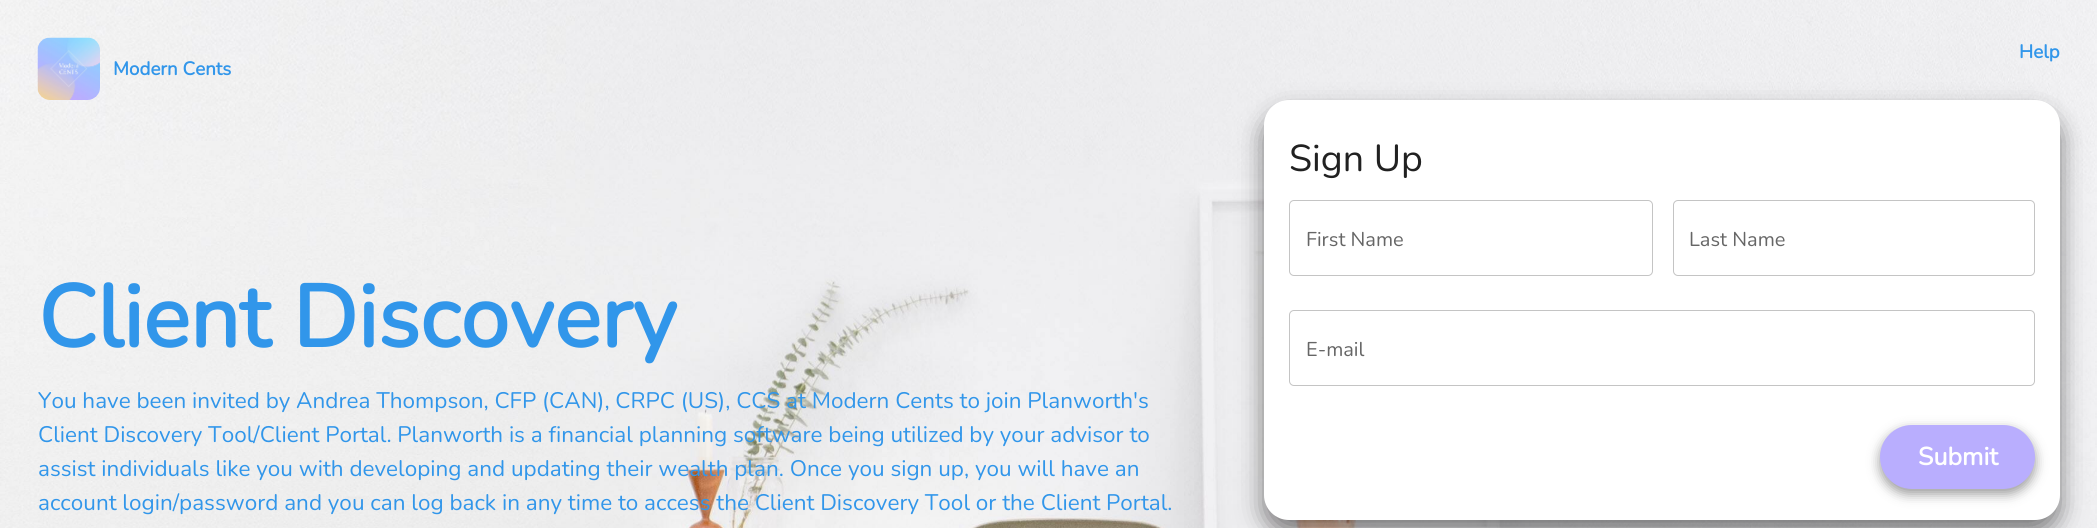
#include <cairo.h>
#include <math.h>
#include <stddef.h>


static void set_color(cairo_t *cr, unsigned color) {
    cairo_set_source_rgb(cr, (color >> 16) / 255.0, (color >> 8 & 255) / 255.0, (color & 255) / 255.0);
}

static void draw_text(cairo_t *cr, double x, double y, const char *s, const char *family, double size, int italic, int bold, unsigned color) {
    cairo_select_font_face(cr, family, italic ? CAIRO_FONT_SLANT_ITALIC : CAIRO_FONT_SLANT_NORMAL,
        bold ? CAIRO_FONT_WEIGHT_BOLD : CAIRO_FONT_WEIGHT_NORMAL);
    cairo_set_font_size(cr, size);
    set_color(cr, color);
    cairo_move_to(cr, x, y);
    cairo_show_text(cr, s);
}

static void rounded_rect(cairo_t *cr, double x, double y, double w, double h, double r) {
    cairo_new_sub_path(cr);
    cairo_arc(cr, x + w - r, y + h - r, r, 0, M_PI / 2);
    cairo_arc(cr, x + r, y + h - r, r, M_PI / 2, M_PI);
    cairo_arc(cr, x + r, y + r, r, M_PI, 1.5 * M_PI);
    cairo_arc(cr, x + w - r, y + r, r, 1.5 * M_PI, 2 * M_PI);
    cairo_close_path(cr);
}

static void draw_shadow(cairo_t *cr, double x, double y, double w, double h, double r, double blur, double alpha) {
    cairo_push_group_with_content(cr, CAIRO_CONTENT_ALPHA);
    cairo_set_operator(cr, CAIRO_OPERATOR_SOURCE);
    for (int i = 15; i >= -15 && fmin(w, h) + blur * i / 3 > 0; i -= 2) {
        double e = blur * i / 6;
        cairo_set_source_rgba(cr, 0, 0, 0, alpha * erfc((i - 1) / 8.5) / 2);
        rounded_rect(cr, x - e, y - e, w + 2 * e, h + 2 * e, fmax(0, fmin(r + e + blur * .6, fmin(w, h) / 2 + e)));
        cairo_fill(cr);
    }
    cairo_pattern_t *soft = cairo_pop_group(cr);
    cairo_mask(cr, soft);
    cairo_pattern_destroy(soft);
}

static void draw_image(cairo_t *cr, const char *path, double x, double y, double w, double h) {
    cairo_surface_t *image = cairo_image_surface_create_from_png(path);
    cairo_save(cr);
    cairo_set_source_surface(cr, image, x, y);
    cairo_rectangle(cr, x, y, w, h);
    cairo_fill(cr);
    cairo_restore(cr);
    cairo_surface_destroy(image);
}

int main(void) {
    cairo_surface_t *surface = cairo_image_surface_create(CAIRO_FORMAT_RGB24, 2097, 528);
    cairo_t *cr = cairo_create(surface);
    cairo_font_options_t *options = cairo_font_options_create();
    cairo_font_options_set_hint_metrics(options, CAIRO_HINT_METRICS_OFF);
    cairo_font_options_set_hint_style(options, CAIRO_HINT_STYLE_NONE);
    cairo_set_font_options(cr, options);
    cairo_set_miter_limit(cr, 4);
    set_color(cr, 0xFFFFFF);
    cairo_paint(cr);
    draw_image(cr, "assets/img1.png", 0, 0, 2097, 528);
    draw_text(cr, 2019, 58, "Help", "Nunito", 18.75, 0, 1, 0x3196EA);
    draw_image(cr, "assets/img2.png", 37, 37, 63, 63);
    draw_text(cr, 113, 75, "Modern Cents", "Nunito", 18.75, 0, 1, 0x3196EA);
    draw_text(cr, 38, 347, "Client Discovery", "Nunito", 87.5, 0, 1, 0x3196EA);
    draw_text(cr, 38, 408, "You have been invited by Andrea Thompson, CFP (CAN), CRPC (US), CCS at Modern Cents to join Planworth's", "Nunito", 22.5, 0, 0, 0x3196EA);
    draw_text(cr, 38, 442, "Client Discovery Tool/Client Portal. Planworth is a financial planning software being utilized by your advisor to", "Nunito", 22.5, 0, 0, 0x3196EA);
    draw_text(cr, 38, 476, "assist individuals like you with developing and updating their wealth plan. Once you sign up, you will have an", "Nunito", 22.5, 0, 0, 0x3196EA);
    draw_text(cr, 38, 510, "account login/password and you can log back in any time to access the Client Discovery Tool or the Client Portal.", "Nunito", 22.5, 0, 0, 0x3196EA);
    set_color(cr, 0x000000);
    draw_shadow(cr, 1264, 113, 796, 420, 25, 12.5, 0.5);
    set_color(cr, 0xFFFFFF);
    rounded_rect(cr, 1264, 100, 796, 420, 25);
    cairo_fill(cr);
    draw_text(cr, 1289, 171, "Sign Up", "Nunito", 37.5, 0, 0, 0x212121);
    rounded_rect(cr, 1289.5, 200.5, 363, 75, 4.5);
    set_color(cr, 0xC4C4C4);
    cairo_set_line_width(cr, 1);
    cairo_stroke(cr);
    draw_text(cr, 1306, 246, "First Name", "Nunito", 20, 0, 0, 0x666666);
    rounded_rect(cr, 1673.5, 200.5, 361, 75, 4.5);
    set_color(cr, 0xC4C4C4);
    cairo_stroke(cr);
    draw_text(cr, 1689, 246, "Last Name", "Nunito", 20, 0, 0, 0x666666);
    rounded_rect(cr, 1289.5, 310.5, 745, 75, 4.5);
    set_color(cr, 0xC4C4C4);
    cairo_stroke(cr);
    draw_text(cr, 1306, 356, "E-mail", "Nunito", 20, 0, 0, 0x666666);
    set_color(cr, 0x000000);
    draw_shadow(cr, 1880, 430, 155, 64, 32, 6, 0.4);
    set_color(cr, 0xB9AEFE);
    rounded_rect(cr, 1880, 425, 155, 64, 32);
    cairo_fill(cr);
    draw_text(cr, 1918, 465, "Submit", "Nunito", 25, 0, 1, 0xFFFFFF);
    cairo_surface_write_to_png(surface, "output.png");
    cairo_font_options_destroy(options);
    cairo_destroy(cr);
    cairo_surface_destroy(surface);
    return 0;
}
